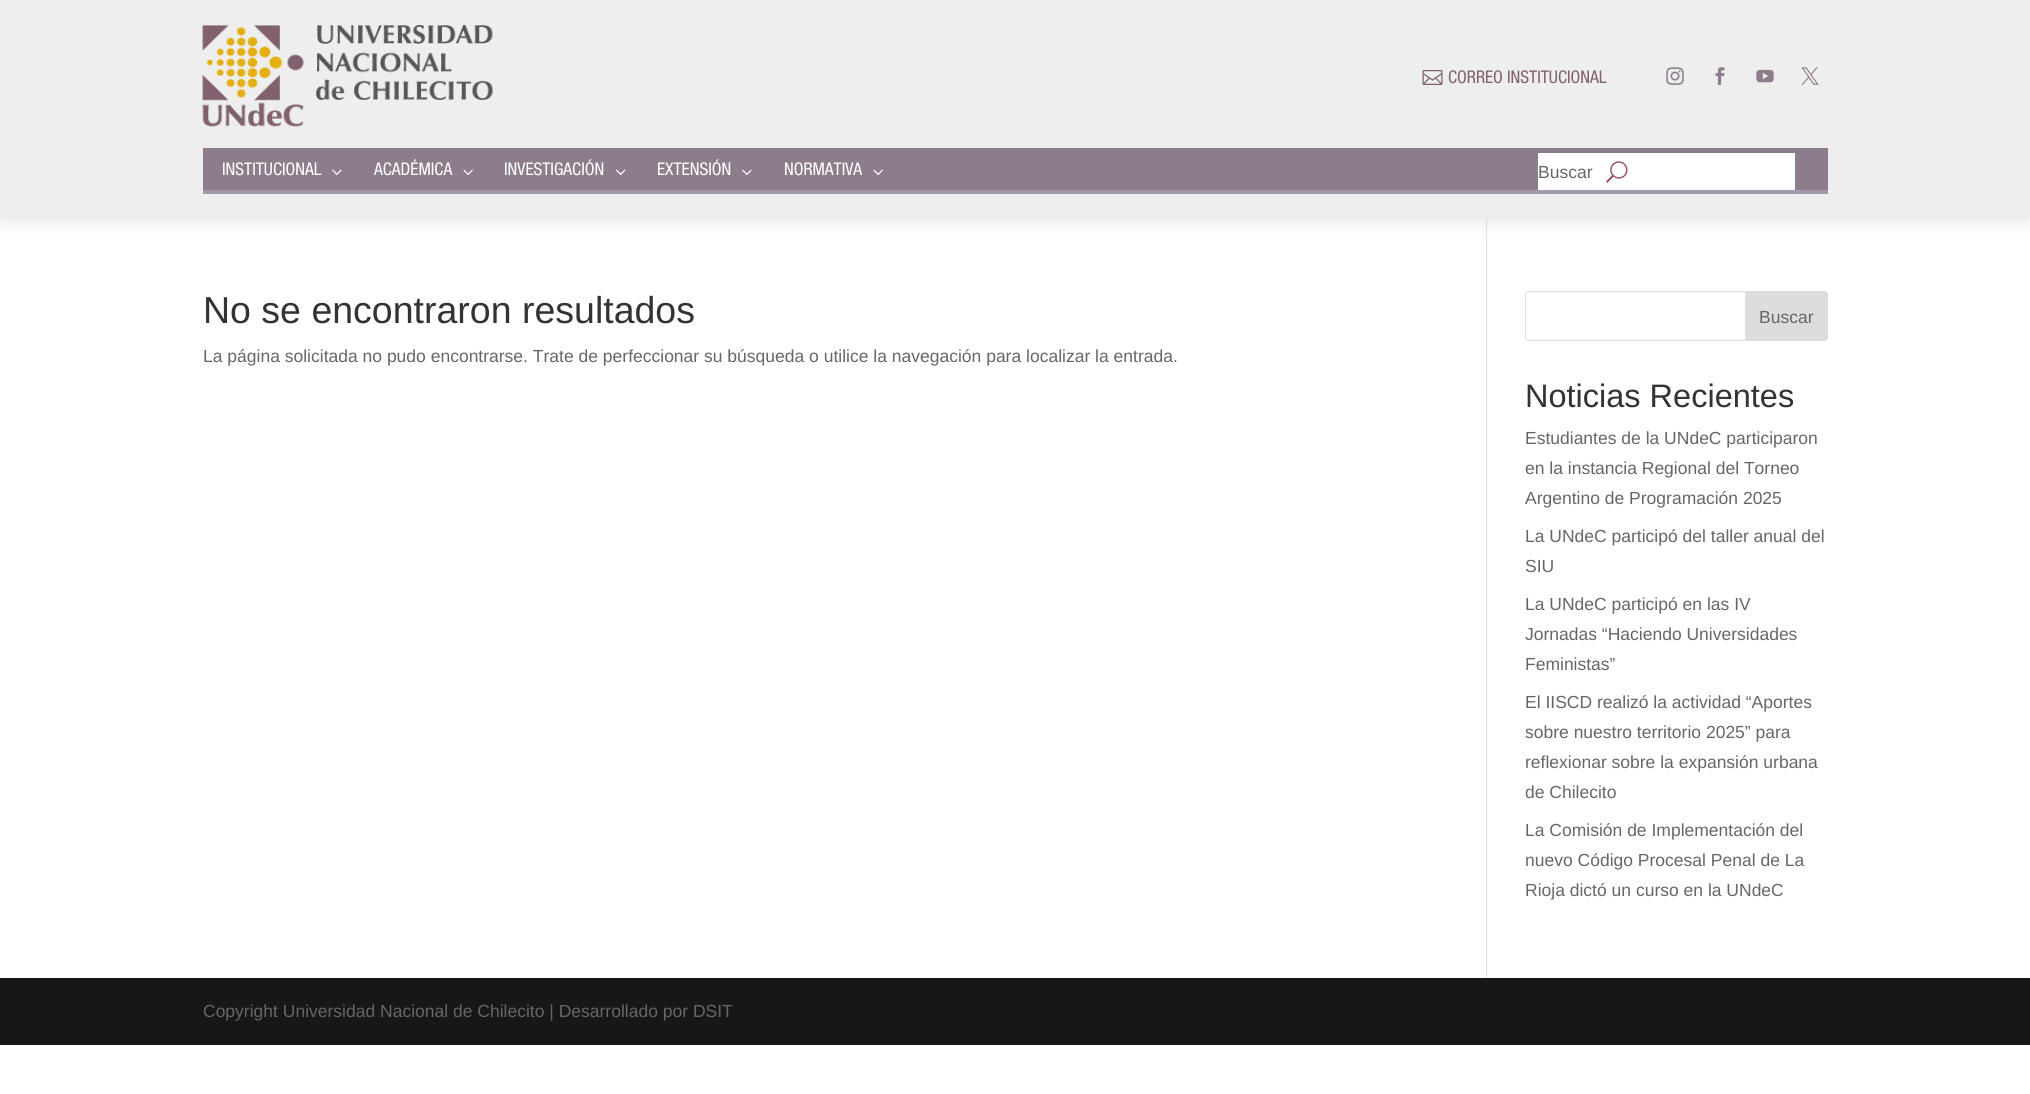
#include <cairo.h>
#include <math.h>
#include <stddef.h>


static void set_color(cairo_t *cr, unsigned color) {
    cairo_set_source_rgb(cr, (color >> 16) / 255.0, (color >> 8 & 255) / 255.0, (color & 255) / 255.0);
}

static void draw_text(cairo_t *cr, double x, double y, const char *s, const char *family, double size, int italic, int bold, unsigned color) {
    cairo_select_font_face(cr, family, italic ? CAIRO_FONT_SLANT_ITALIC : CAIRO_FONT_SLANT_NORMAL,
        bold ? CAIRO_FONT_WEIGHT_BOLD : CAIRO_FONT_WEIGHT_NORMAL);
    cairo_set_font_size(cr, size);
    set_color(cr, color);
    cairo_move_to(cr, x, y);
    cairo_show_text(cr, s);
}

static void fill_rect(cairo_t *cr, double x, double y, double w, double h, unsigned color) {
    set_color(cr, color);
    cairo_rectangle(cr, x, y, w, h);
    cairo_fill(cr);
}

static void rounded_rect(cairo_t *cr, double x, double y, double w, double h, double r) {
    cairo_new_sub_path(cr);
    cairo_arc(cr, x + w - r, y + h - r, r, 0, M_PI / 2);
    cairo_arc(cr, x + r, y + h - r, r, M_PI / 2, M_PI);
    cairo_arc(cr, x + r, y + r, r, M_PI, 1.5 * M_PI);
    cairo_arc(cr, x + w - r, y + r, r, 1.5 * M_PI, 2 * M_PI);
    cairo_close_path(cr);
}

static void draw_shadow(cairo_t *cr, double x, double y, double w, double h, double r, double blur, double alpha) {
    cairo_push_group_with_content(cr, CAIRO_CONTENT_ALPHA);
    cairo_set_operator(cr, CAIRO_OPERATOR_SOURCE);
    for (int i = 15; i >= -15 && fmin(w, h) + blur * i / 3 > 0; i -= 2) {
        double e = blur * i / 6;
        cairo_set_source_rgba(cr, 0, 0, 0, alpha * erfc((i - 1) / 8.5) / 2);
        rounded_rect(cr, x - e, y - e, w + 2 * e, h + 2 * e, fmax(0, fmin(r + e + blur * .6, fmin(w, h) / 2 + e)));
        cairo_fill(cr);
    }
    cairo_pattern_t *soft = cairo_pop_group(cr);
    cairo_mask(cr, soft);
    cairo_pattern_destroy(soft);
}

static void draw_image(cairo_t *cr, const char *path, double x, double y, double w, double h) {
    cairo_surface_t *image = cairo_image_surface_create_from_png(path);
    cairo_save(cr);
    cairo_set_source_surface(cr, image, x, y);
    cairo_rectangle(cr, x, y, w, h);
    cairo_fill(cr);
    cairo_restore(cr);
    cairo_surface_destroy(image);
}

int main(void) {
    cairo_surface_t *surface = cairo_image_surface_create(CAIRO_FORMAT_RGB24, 2030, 1094);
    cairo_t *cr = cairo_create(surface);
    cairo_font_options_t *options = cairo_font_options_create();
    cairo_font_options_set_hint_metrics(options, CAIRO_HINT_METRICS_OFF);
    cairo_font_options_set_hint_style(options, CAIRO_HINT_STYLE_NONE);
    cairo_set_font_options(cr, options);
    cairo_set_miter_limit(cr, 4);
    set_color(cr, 0xFFFFFF);
    cairo_paint(cr);
    fill_rect(cr, 1486, 219, 1, 759, 0xE2E2E2);
    set_color(cr, 0x000000);
    draw_shadow(cr, 0, 3, 2030, 218, 0, 11, 0.1);
    fill_rect(cr, 0, 0, 2030, 219, 0xEEEEEE);
    draw_image(cr, "assets/img1.png", 202, 25, 291, 102);
    draw_image(cr, "assets/img2.png", 1422, 70, 21, 15);
    draw_text(cr, 1448, 83, "CORREO INSTITUCIONAL", "Helvetica Neue", 17.5, 0, 0, 0x816170);
    draw_image(cr, "assets/img3.png", 1666, 67, 18, 18);
    draw_image(cr, "assets/img4.png", 1715, 67, 10, 18);
    draw_image(cr, "assets/img5.png", 1756, 69, 18, 14);
    draw_image(cr, "assets/img6.png", 1801, 67, 18, 18);
    fill_rect(cr, 203, 148, 1625, 42, 0x8D7D8C);
    fill_rect(cr, 203, 190, 1625, 4, 0xA499AA);
    draw_text(cr, 222, 175, "INSTITUCIONAL", "Helvetica Neue", 17.5, 0, 0, 0xFFFFFF);
    draw_image(cr, "assets/img7.png", 332, 169, 10, 6);
    draw_text(cr, 374, 175, "ACADÉMICA", "Helvetica Neue", 17.5, 0, 0, 0xFFFFFF);
    draw_image(cr, "assets/img8.png", 463, 169, 10, 6);
    draw_text(cr, 504, 175, "INVESTIGACIÓN", "Helvetica Neue", 17.5, 0, 0, 0xFFFFFF);
    draw_image(cr, "assets/img9.png", 616, 169, 10, 6);
    draw_text(cr, 657, 175, "EXTENSIÓN", "Helvetica Neue", 17.5, 0, 0, 0xFFFFFF);
    draw_image(cr, "assets/img7.png", 742, 169, 10, 6);
    draw_text(cr, 784, 175, "NORMATIVA", "Helvetica Neue", 17.5, 0, 0, 0xFFFFFF);
    draw_image(cr, "assets/img8.png", 873, 169, 10, 6);
    fill_rect(cr, 1538, 153, 257, 37, 0xFFFFFF);
    draw_text(cr, 1538, 178, "Buscar", "Liberation Sans", 17.5, 0, 0, 0x666666);
    draw_image(cr, "assets/img10.png", 1606, 161, 22, 22);
    draw_text(cr, 203, 323, "No se encontraron resultados", "Liberation Sans", 37.5, 0, 0, 0x333333);
    draw_text(cr, 203, 362, "La página solicitada no pudo encontrarse. Trate de perfeccionar su búsqueda o utilice la navegación para localizar la entrada.", "Liberation Sans", 17.5, 0, 0, 0x666666);
    rounded_rect(cr, 1525.5, 291.5, 302, 49, 3.5);
    set_color(cr, 0xDDDDDD);
    cairo_set_line_width(cr, 1);
    cairo_stroke(cr);
    cairo_new_path(cr);
    cairo_move_to(cr, 1745.5, 291.5);
    cairo_line_to(cr, 1824, 291.5);
    cairo_curve_to(cr, 1826, 291.5, 1827.5, 293, 1827.5, 295);
    cairo_line_to(cr, 1827.5, 337);
    cairo_curve_to(cr, 1827.5, 339, 1826, 340.5, 1824, 340.5);
    cairo_line_to(cr, 1745.5, 340.5);
    cairo_close_path(cr);
    cairo_fill_preserve(cr);
    cairo_stroke(cr);
    draw_text(cr, 1759, 323, "Buscar", "Liberation Sans", 17.5, 0, 0, 0x666666);
    draw_text(cr, 1525, 407, "Noticias Recientes", "Liberation Sans", 32.5, 0, 0, 0x333333);
    draw_text(cr, 1525, 444, "Estudiantes de la UNdeC participaron", "Liberation Sans", 17.5, 0, 0, 0x666666);
    draw_text(cr, 1525, 474, "en la instancia Regional del Torneo", "Liberation Sans", 17.5, 0, 0, 0x666666);
    draw_text(cr, 1525, 504, "Argentino de Programación 2025", "Liberation Sans", 17.5, 0, 0, 0x666666);
    draw_text(cr, 1525, 542, "La UNdeC participó del taller anual del", "Liberation Sans", 17.5, 0, 0, 0x666666);
    draw_text(cr, 1525, 572, "SIU", "Liberation Sans", 17.5, 0, 0, 0x666666);
    draw_text(cr, 1525, 610, "La UNdeC participó en las IV", "Liberation Sans", 17.5, 0, 0, 0x666666);
    draw_text(cr, 1525, 640, "Jornadas “Haciendo Universidades", "Liberation Sans", 17.5, 0, 0, 0x666666);
    draw_text(cr, 1525, 670, "Feministas”", "Liberation Sans", 17.5, 0, 0, 0x666666);
    draw_text(cr, 1525, 708, "El IISCD realizó la actividad “Aportes", "Liberation Sans", 17.5, 0, 0, 0x666666);
    draw_text(cr, 1525, 738, "sobre nuestro territorio 2025” para", "Liberation Sans", 17.5, 0, 0, 0x666666);
    draw_text(cr, 1525, 768, "reflexionar sobre la expansión urbana", "Liberation Sans", 17.5, 0, 0, 0x666666);
    draw_text(cr, 1525, 798, "de Chilecito", "Liberation Sans", 17.5, 0, 0, 0x666666);
    draw_text(cr, 1525, 836, "La Comisión de Implementación del", "Liberation Sans", 17.5, 0, 0, 0x666666);
    draw_text(cr, 1525, 866, "nuevo Código Procesal Penal de La", "Liberation Sans", 17.5, 0, 0, 0x666666);
    draw_text(cr, 1525, 896, "Rioja dictó un curso en la UNdeC", "Liberation Sans", 17.5, 0, 0, 0x666666);
    fill_rect(cr, 0, 978, 2030, 67, 0x171717);
    draw_text(cr, 203, 1017, "Copyright Universidad Nacional de Chilecito | Desarrollado por DSIT", "Liberation Sans", 17.5, 0, 0, 0x666666);
    cairo_surface_write_to_png(surface, "output.png");
    cairo_font_options_destroy(options);
    cairo_destroy(cr);
    cairo_surface_destroy(surface);
    return 0;
}
